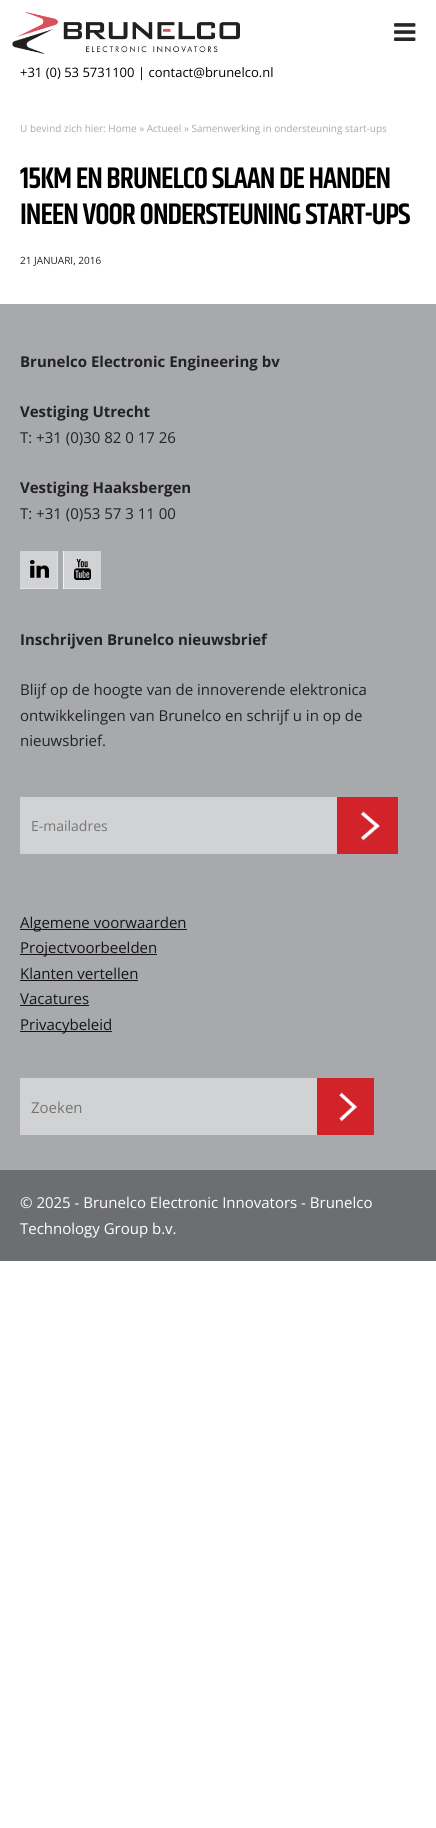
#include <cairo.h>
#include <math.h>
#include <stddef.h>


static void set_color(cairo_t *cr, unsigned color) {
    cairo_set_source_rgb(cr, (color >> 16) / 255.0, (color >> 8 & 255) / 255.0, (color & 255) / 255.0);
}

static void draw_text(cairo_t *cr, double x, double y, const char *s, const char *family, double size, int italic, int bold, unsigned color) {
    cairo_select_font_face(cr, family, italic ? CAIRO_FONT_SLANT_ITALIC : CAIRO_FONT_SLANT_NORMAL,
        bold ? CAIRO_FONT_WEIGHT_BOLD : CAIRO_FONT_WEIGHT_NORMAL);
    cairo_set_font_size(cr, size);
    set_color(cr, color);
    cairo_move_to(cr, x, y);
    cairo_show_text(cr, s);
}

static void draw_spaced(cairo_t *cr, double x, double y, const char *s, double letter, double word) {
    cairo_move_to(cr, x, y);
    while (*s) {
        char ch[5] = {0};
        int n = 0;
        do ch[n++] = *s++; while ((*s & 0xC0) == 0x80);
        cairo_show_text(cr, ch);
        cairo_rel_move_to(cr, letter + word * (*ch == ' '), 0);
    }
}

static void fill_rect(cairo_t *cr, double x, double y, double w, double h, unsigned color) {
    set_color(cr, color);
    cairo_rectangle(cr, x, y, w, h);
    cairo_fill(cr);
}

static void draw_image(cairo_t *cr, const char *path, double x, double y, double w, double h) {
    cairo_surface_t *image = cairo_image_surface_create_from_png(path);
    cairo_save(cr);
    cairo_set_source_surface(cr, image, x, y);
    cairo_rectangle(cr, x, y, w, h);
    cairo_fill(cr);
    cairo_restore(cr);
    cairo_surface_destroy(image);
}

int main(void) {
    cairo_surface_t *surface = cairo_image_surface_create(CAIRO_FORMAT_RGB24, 436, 1828);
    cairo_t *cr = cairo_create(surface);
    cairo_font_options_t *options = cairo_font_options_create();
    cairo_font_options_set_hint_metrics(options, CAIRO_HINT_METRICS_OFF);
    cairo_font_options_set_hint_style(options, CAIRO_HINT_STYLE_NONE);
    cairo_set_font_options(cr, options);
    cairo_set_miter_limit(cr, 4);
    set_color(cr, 0xFFFFFF);
    cairo_paint(cr);
    draw_image(cr, "assets/img1.png", 12, 12, 228, 42);
    draw_image(cr, "assets/img2.png", 394, 23, 22, 18);
    draw_text(cr, 20, 77, "+31 (0) 53 5731100", "Open Sans", 13, 0, 0, 0x000000);
    draw_text(cr, 138, 77, "| contact@brunelco.nl", "Open Sans", 13, 0, 0, 0x000000);
    draw_text(cr, 20, 132, "U bevind zich hier: Home » Actueel » Samenwerking in ondersteuning start-ups", "Open Sans", 10, 0, 0, 0xA9A9A9);
    cairo_select_font_face(cr, "Khand SemiBold", CAIRO_FONT_SLANT_NORMAL, CAIRO_FONT_WEIGHT_NORMAL);
    cairo_set_font_size(cr, 30);
    set_color(cr, 0x000000);
    draw_spaced(cr, 20, 188, "15KM EN BRUNELCO SLAAN DE HANDEN", -1, 0);
    draw_spaced(cr, 20, 224, "INEEN VOOR ONDERSTEUNING START-UPS", -1, 0);
    draw_text(cr, 20, 264, "21 JANUARI, 2016", "Open Sans", 10, 0, 0, 0x222222);
    fill_rect(cr, 0, 304, 436, 866, 0xA7A9AC);
    draw_text(cr, 20, 367, "Brunelco Electronic Engineering bv", "Open Sans", 15, 0, 1, 0x222222);
    draw_text(cr, 20, 417, "Vestiging Utrecht", "Open Sans", 15, 0, 1, 0x222222);
    draw_text(cr, 20, 443, "T: +31 (0)30 82 0 17 26", "Open Sans", 15, 0, 0, 0x222222);
    draw_text(cr, 20, 493, "Vestiging Haaksbergen", "Open Sans", 15, 0, 1, 0x222222);
    draw_text(cr, 20, 519, "T: +31 (0)53 57 3 11 00", "Open Sans", 15, 0, 0, 0x222222);
    draw_image(cr, "assets/img3.png", 20, 551, 38, 38);
    draw_image(cr, "assets/img4.png", 63, 551, 38, 38);
    draw_text(cr, 20, 645, "Inschrijven Brunelco nieuwsbrief", "Open Sans", 15, 0, 1, 0x222222);
    draw_text(cr, 20, 695, "Blijf op de hoogte van de innoverende elektronica", "Open Sans", 15, 0, 0, 0x222222);
    draw_text(cr, 20, 721, "ontwikkelingen van Brunelco en schrijf u in op de", "Open Sans", 15, 0, 0, 0x222222);
    draw_text(cr, 20, 746, "nieuwsbrief.", "Open Sans", 15, 0, 0, 0x222222);
    set_color(cr, 0xD1D2D4);
    cairo_rectangle(cr, 20.5, 797.5, 316, 56);
    cairo_fill_preserve(cr);
    set_color(cr, 0xD1D1D1);
    cairo_set_line_width(cr, 1);
    cairo_stroke(cr);
    draw_text(cr, 31, 831, "E-mailadres", "Open Sans", 14, 0, 0, 0x757575);
    draw_image(cr, "assets/img5.png", 337, 797, 61, 57);
    fill_rect(cr, 20, 929, 167, 1, 0x151515);
    draw_text(cr, 20, 928, "Algemene voorwaarden", "Open Sans", 15, 0, 0, 0x151515);
    fill_rect(cr, 20, 954, 137, 1, 0x151515);
    draw_text(cr, 20, 953, "Projectvoorbeelden", "Open Sans", 15, 0, 0, 0x151515);
    draw_text(cr, 20, 979, "Klanten vertellen", "Open Sans", 15, 0, 0, 0x151515);
    fill_rect(cr, 20, 980, 118, 1, 0x151515);
    draw_text(cr, 20, 1004, "Vacatures", "Open Sans", 15, 0, 0, 0x151515);
    fill_rect(cr, 20, 1005, 69, 1, 0x151515);
    fill_rect(cr, 20, 1031, 92, 1, 0x151515);
    draw_text(cr, 20, 1030, "Privacybeleid", "Open Sans", 15, 0, 0, 0x151515);
    set_color(cr, 0xD1D2D4);
    cairo_rectangle(cr, 20.5, 1078.5, 296, 56);
    cairo_fill_preserve(cr);
    set_color(cr, 0xD1D1D1);
    cairo_stroke(cr);
    draw_text(cr, 31, 1113, "Zoeken", "Open Sans", 15, 0, 0, 0x757575);
    draw_image(cr, "assets/img6.png", 317, 1078, 57, 57);
    fill_rect(cr, 0, 1170, 436, 91, 0x6D6E71);
    draw_text(cr, 20, 1208, "© 2025 - Brunelco Electronic Innovators - Brunelco", "Open Sans", 15, 0, 0, 0xFFFFFF);
    draw_text(cr, 20, 1234, "Technology Group b.v.", "Open Sans", 15, 0, 0, 0xFFFFFF);
    cairo_surface_write_to_png(surface, "output.png");
    cairo_font_options_destroy(options);
    cairo_destroy(cr);
    cairo_surface_destroy(surface);
    return 0;
}
